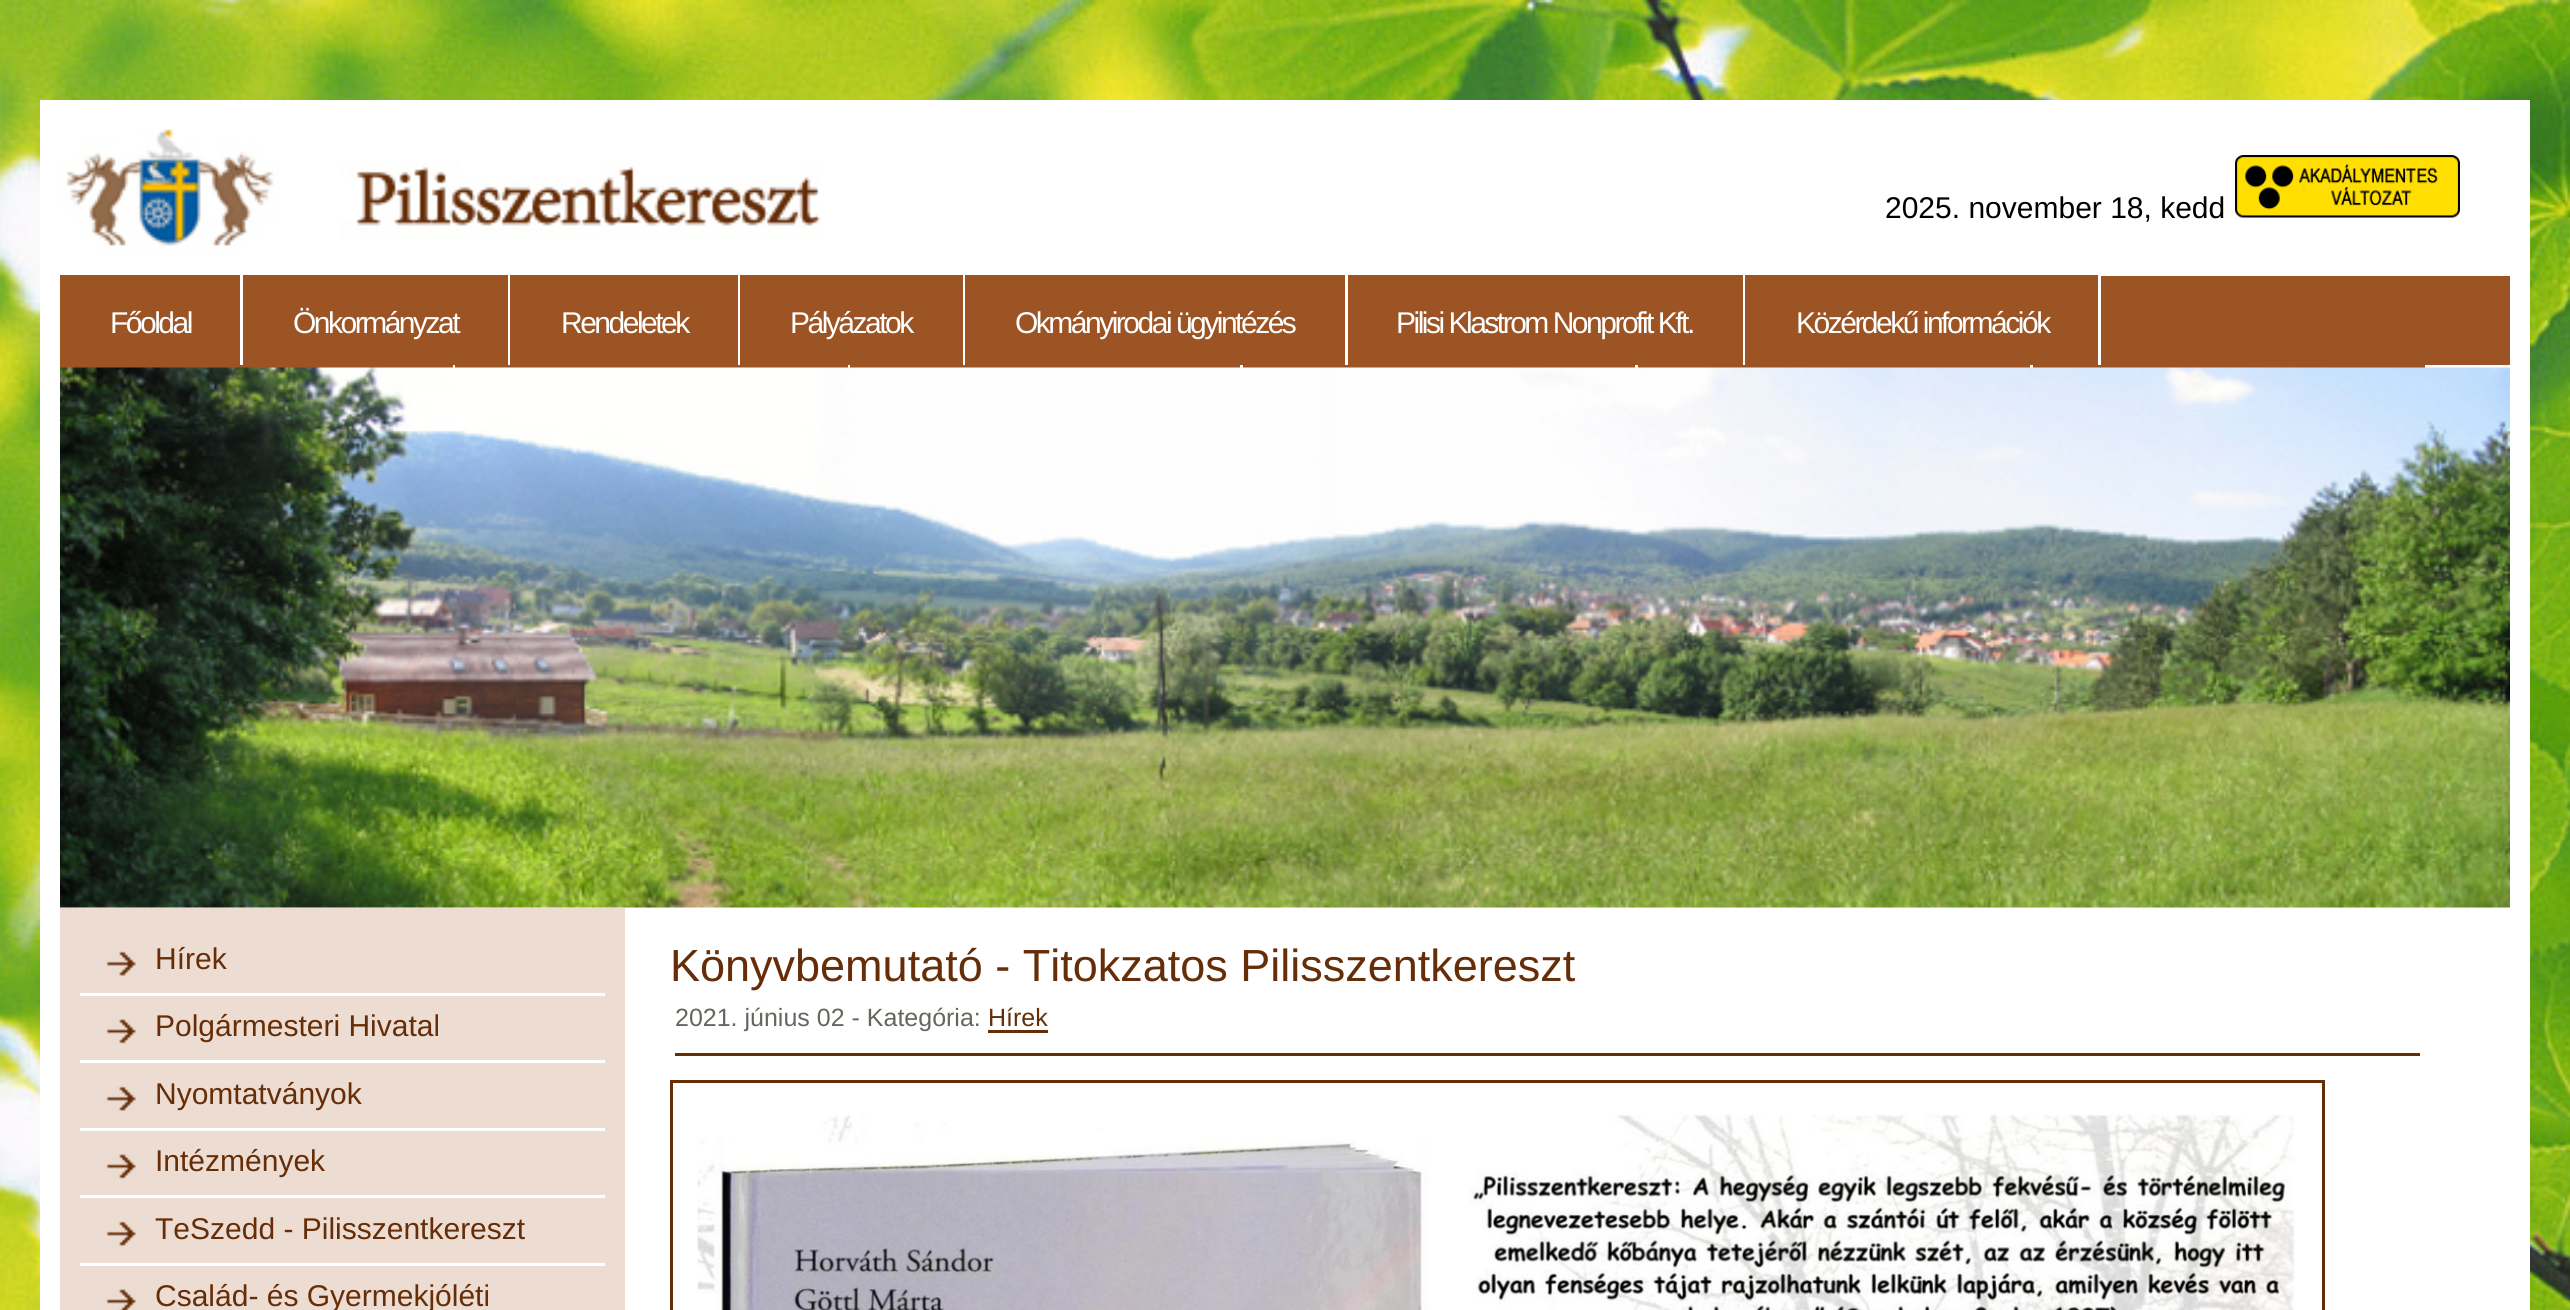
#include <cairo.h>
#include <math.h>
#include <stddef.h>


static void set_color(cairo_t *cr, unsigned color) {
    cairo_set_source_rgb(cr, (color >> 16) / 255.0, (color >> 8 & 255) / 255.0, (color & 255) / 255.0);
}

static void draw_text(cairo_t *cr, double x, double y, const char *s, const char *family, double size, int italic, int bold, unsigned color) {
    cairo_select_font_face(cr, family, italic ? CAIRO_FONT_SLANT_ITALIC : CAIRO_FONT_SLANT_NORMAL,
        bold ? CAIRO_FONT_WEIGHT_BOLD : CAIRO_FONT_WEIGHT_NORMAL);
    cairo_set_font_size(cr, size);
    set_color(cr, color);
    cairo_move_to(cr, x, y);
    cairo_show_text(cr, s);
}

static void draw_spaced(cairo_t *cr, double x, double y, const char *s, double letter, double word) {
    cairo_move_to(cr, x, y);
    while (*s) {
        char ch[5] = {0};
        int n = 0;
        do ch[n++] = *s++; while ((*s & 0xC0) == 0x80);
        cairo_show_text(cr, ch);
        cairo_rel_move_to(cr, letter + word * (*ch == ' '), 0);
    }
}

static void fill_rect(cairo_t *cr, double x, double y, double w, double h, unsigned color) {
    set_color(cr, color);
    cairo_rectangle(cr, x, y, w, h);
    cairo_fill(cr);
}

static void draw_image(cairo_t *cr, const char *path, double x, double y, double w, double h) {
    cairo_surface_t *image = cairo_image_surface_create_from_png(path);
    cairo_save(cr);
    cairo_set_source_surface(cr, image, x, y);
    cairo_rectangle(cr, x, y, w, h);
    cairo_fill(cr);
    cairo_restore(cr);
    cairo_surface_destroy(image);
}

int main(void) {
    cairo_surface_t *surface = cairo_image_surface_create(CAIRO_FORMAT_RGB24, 2570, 1310);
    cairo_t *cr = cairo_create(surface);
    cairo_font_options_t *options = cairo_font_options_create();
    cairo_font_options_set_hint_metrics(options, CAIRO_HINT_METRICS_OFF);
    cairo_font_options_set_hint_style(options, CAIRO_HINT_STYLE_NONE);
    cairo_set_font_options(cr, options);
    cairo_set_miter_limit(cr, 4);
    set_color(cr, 0xFFFFFF);
    cairo_paint(cr);
    draw_image(cr, "assets/img1.png", 0, 0, 2570, 1310);
    fill_rect(cr, 40, 100, 2490, 173, 0xFFFFFF);
    draw_image(cr, "assets/img2.png", 60, 129, 761, 125);
    draw_text(cr, 1885, 218, "2025. november 18, kedd", "Liberation Sans", 30, 0, 0, 0x000000);
    draw_image(cr, "assets/img3.png", 2235, 155, 225, 63);
    fill_rect(cr, 2101, 276, 409, 89, 0x9C5424);
    fill_rect(cr, 60, 273, 2450, 3, 0xFFFFFF);
    fill_rect(cr, 2510, 273, 20, 92, 0xFFFFFF);
    fill_rect(cr, 2425, 365, 105, 3, 0xFFFFFF);
    fill_rect(cr, 40, 273, 20, 1037, 0xFFFFFF);
    fill_rect(cr, 60, 275, 180, 90, 0x9C5424);
    fill_rect(cr, 240, 275, 3, 90, 0xFFFFFF);
    draw_spaced(cr, 110, 333, "Főoldal", -2.5, 0);
    fill_rect(cr, 243, 275, 265, 90, 0x9C5424);
    fill_rect(cr, 508, 275, 2, 90, 0xFFFFFF);
    draw_spaced(cr, 293, 333, "Önkormányzat", -2.5, 0);
    fill_rect(cr, 510, 275, 228, 90, 0x9C5424);
    fill_rect(cr, 738, 275, 2, 90, 0xFFFFFF);
    draw_spaced(cr, 561, 333, "Rendeletek", -2.5, 0);
    fill_rect(cr, 740, 275, 223, 90, 0x9C5424);
    fill_rect(cr, 963, 275, 2, 90, 0xFFFFFF);
    draw_spaced(cr, 790, 333, "Pályázatok", -2.5, 0);
    fill_rect(cr, 965, 275, 380, 90, 0x9C5424);
    fill_rect(cr, 1345, 275, 3, 90, 0xFFFFFF);
    draw_spaced(cr, 1015, 333, "Okmányirodai ügyintézés", -2.5, 0);
    fill_rect(cr, 1348, 275, 395, 90, 0x9C5424);
    fill_rect(cr, 1743, 275, 2, 90, 0xFFFFFF);
    draw_spaced(cr, 1396, 333, "Pilisi Klastrom Nonprofit Kft.", -2.5, 0);
    fill_rect(cr, 1745, 275, 353, 90, 0x9C5424);
    fill_rect(cr, 2098, 275, 3, 90, 0xFFFFFF);
    draw_spaced(cr, 1796, 333, "Közérdekű információk", -2.5, 0);
    fill_rect(cr, 60, 365, 393, 3, 0x9C5424);
    fill_rect(cr, 453, 365, 2, 3, 0xFFFFFF);
    fill_rect(cr, 455, 365, 393, 3, 0x9C5424);
    fill_rect(cr, 848, 365, 2, 3, 0xFFFFFF);
    fill_rect(cr, 850, 365, 390, 3, 0x9C5424);
    fill_rect(cr, 1240, 365, 3, 3, 0xFFFFFF);
    fill_rect(cr, 1243, 365, 392, 3, 0x9C5424);
    fill_rect(cr, 1635, 365, 3, 3, 0xFFFFFF);
    fill_rect(cr, 1638, 365, 392, 3, 0x9C5424);
    fill_rect(cr, 2030, 365, 3, 3, 0xFFFFFF);
    fill_rect(cr, 2033, 365, 392, 3, 0x9C5424);
    fill_rect(cr, 60, 907, 2450, 403, 0xFFFFFF);
    fill_rect(cr, 2510, 368, 20, 942, 0xFFFFFF);
    draw_image(cr, "assets/img4.png", 60, 367, 2450, 541);
    fill_rect(cr, 60, 908, 565, 402, 0xECDCD1);
    fill_rect(cr, 80, 993, 525, 3, 0xFFFFFF);
    draw_image(cr, "assets/img5.png", 106, 951, 30, 25);
    draw_text(cr, 155, 969, "Hírek", "Liberation Sans", 30, 0, 0, 0x652D08);
    fill_rect(cr, 80, 1060, 525, 3, 0xFFFFFF);
    draw_image(cr, "assets/img6.png", 106, 1019, 30, 25);
    draw_text(cr, 155, 1036, "Polgármesteri Hivatal", "Liberation Sans", 30, 0, 0, 0x652D08);
    fill_rect(cr, 80, 1128, 525, 3, 0xFFFFFF);
    draw_image(cr, "assets/img5.png", 106, 1086, 30, 25);
    draw_text(cr, 155, 1104, "Nyomtatványok", "Liberation Sans", 30, 0, 0, 0x652D08);
    fill_rect(cr, 80, 1195, 525, 3, 0xFFFFFF);
    draw_image(cr, "assets/img7.png", 106, 1154, 30, 25);
    draw_text(cr, 155, 1171, "Intézmények", "Liberation Sans", 30, 0, 0, 0x652D08);
    fill_rect(cr, 80, 1263, 525, 3, 0xFFFFFF);
    draw_image(cr, "assets/img5.png", 106, 1221, 30, 25);
    draw_text(cr, 155, 1239, "TeSzedd - Pilisszentkereszt", "Liberation Sans", 30, 0, 0, 0x652D08);
    draw_image(cr, "assets/img8.png", 106, 1289, 30, 21);
    draw_text(cr, 155, 1306, "Család- és Gyermekjóléti", "Liberation Sans", 30, 0, 0, 0x652D08);
    draw_text(cr, 670, 981, "Könyvbemutató - Titokzatos Pilisszentkereszt", "Liberation Sans", 45, 0, 0, 0x652D08);
    fill_rect(cr, 675, 1053, 1745, 3, 0x652D08);
    draw_text(cr, 675, 1026, "2021. június 02 - Kategória:", "Liberation Sans", 25, 0, 0, 0x66665E);
    draw_text(cr, 988, 1026, "Hírek", "Liberation Sans", 25, 0, 0, 0x652D08);
    fill_rect(cr, 988, 1030, 60, 3, 0x652D08);
    cairo_rectangle(cr, 671.5, 1081.5, 1652, 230);
    cairo_set_line_width(cr, 3);
    cairo_stroke(cr);
    draw_image(cr, "assets/img9.png", 697, 1114, 1598, 196);
    cairo_surface_write_to_png(surface, "output.png");
    cairo_font_options_destroy(options);
    cairo_destroy(cr);
    cairo_surface_destroy(surface);
    return 0;
}
